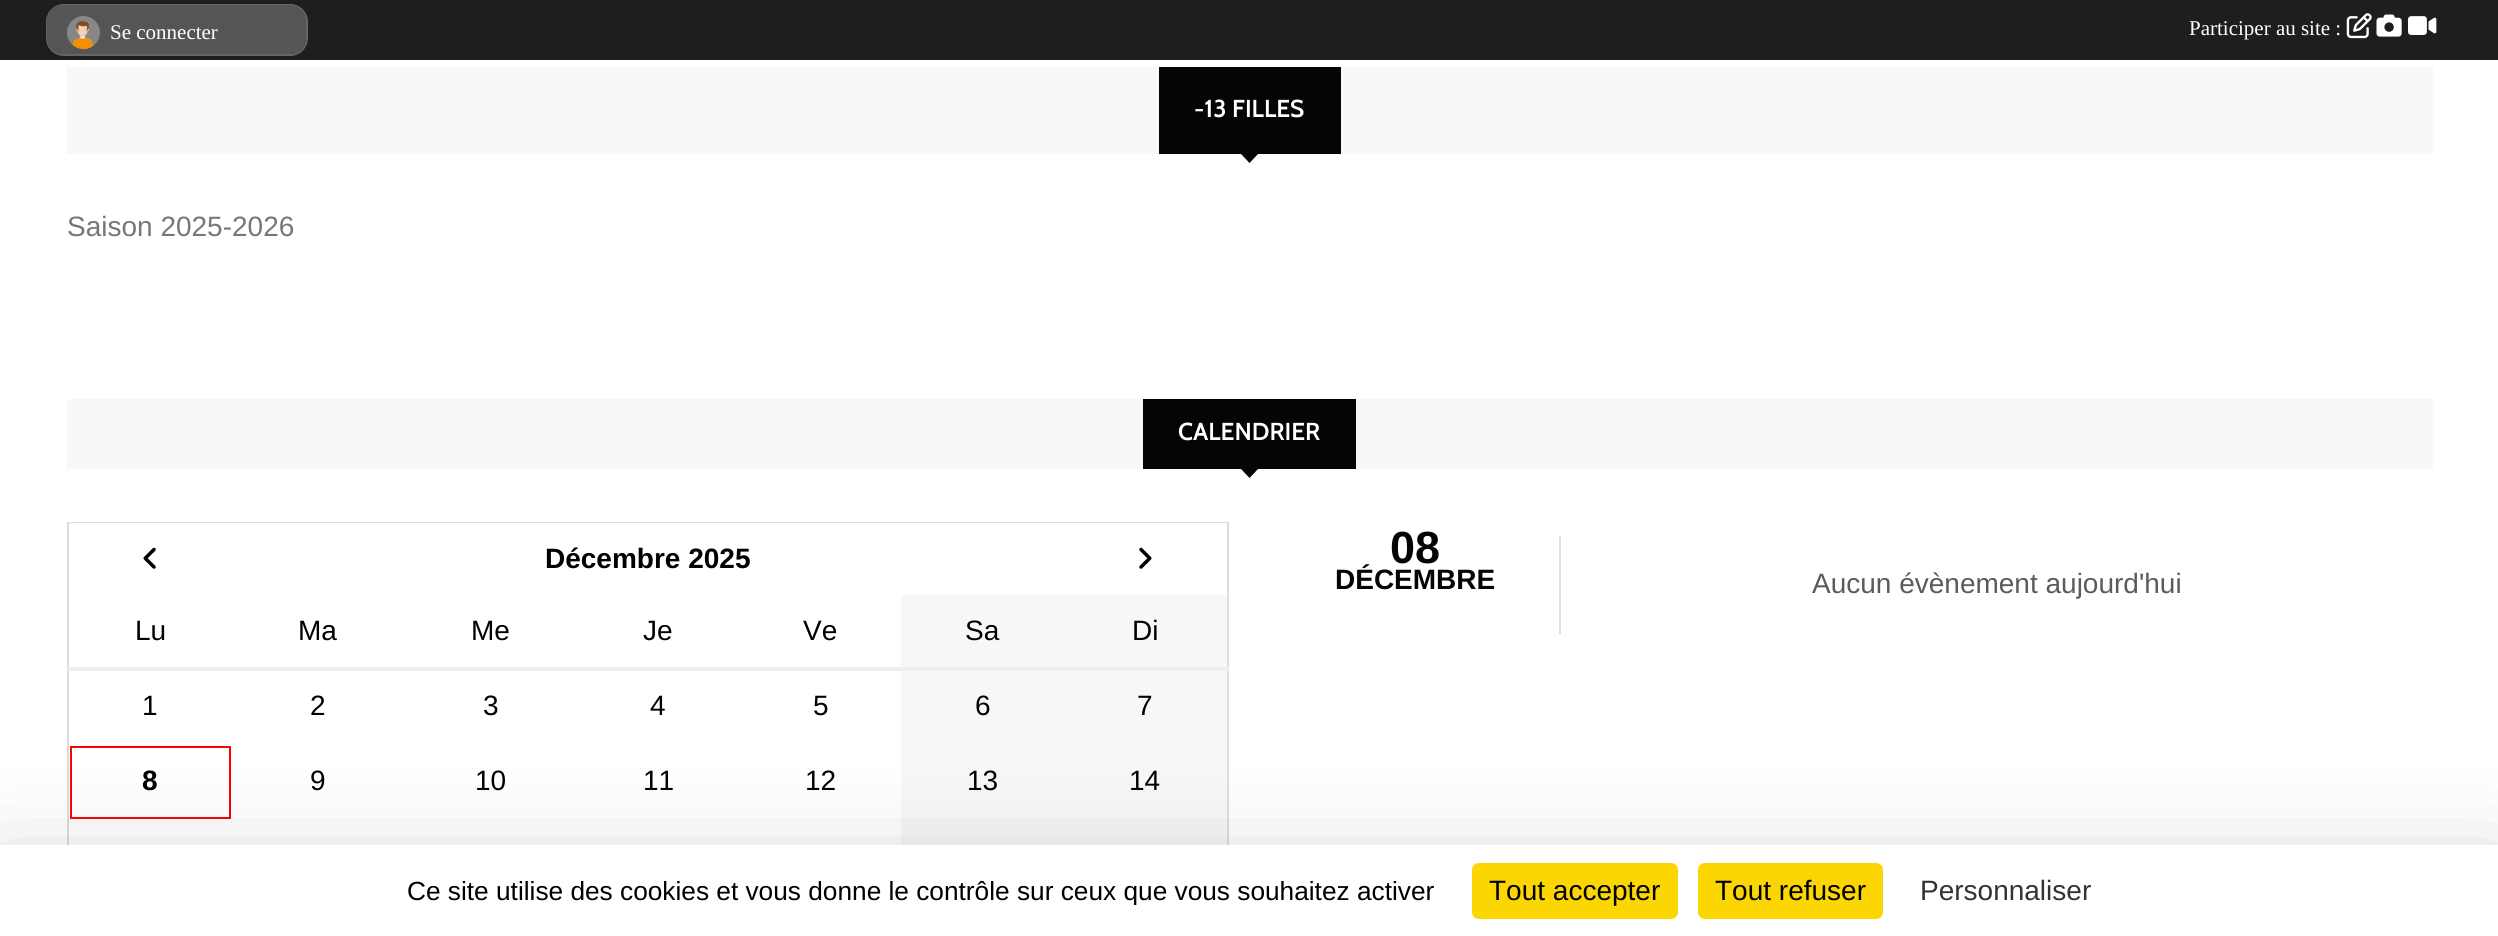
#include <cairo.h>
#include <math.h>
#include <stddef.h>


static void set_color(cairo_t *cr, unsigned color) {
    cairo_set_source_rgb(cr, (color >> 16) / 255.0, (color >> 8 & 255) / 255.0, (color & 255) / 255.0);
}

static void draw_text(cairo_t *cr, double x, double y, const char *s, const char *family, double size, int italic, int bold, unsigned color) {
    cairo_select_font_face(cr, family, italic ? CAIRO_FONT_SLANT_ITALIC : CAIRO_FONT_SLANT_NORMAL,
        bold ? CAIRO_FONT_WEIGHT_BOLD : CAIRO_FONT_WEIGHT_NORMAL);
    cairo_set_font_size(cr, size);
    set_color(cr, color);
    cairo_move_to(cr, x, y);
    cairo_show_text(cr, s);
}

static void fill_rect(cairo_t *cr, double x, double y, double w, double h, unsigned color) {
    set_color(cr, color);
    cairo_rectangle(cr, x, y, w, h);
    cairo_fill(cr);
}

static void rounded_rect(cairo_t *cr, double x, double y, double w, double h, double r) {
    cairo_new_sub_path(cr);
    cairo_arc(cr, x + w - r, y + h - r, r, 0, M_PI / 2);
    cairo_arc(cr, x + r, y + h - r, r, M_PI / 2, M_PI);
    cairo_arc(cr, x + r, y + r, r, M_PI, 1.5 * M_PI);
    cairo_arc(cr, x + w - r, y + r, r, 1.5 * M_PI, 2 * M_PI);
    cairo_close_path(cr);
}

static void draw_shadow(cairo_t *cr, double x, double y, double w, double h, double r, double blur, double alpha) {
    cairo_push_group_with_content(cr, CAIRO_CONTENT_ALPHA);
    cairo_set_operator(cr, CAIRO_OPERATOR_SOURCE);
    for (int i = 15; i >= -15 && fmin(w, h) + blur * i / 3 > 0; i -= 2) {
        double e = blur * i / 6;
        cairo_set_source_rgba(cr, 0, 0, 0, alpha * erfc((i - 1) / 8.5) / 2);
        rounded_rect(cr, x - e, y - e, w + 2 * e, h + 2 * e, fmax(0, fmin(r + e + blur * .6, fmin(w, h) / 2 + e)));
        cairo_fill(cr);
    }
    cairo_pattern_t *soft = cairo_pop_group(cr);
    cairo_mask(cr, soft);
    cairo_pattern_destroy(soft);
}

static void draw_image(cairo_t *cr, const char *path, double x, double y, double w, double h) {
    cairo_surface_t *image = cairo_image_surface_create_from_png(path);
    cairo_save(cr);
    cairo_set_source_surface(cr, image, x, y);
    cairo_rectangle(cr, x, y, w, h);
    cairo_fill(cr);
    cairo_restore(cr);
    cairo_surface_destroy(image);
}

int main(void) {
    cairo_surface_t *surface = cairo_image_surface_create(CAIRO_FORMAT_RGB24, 2498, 936);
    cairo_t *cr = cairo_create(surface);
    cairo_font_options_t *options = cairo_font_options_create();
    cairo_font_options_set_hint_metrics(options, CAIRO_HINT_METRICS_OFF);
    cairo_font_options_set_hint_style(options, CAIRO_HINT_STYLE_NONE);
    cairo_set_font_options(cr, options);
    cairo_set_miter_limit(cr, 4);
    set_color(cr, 0xFFFFFF);
    cairo_paint(cr);
    fill_rect(cr, 0, 0, 2498, 60, 0x1E1E1E);
    rounded_rect(cr, 47, 5, 260, 50, 17);
    set_color(cr, 0x666666);
    cairo_stroke(cr);
    set_color(cr, 0x555555);
    rounded_rect(cr, 47, 5, 259, 49, 16);
    cairo_fill(cr);
    draw_image(cr, "assets/img1.png", 67, 16, 33, 33);
    draw_text(cr, 110, 39, "Se connecter", "Liberation Serif", 21, 0, 0, 0xFFFFFF);
    draw_text(cr, 2189, 35, "Participer au site :", "Liberation Serif", 21, 0, 0, 0xFFFFFF);
    draw_image(cr, "assets/img2.png", 2346, 13, 26, 26);
    draw_image(cr, "assets/img3.png", 2376, 14, 26, 23);
    draw_image(cr, "assets/img4.png", 2408, 16, 29, 19);
    fill_rect(cr, 67, 67, 2366, 87, 0xF8F8F8);
    fill_rect(cr, 1159, 67, 182, 87, 0x050508);
    draw_text(cr, 1194, 117, "-13 FILLES", "Cabin SemiBold", 24.5, 0, 0, 0xFFFFFF);
    set_color(cr, 0x050508);
    cairo_new_path(cr);
    cairo_move_to(cr, 1241, 154);
    cairo_line_to(cr, 1258, 154);
    cairo_line_to(cr, 1249.5, 163);
    cairo_close_path(cr);
    cairo_fill(cr);
    draw_text(cr, 67, 236, "Saison 2025-2026", "Liberation Sans", 28, 0, 0, 0x777777);
    fill_rect(cr, 67, 399, 2366, 70, 0xF8F8F8);
    fill_rect(cr, 1143, 399, 213, 70, 0x050508);
    draw_text(cr, 1178, 440, "CALENDRIER", "Cabin SemiBold", 24.5, 0, 0, 0xFFFFFF);
    set_color(cr, 0x050508);
    cairo_new_path(cr);
    cairo_move_to(cr, 1241, 469);
    cairo_line_to(cr, 1258, 469);
    cairo_line_to(cr, 1249.5, 478);
    cairo_close_path(cr);
    cairo_fill(cr);
    cairo_rectangle(cr, 68, 523, 1160, 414);
    set_color(cr, 0xDDDDDD);
    cairo_stroke(cr);
    fill_rect(cr, 68, 667, 1161, 4, 0xEEEEEE);
    fill_rect(cr, 70, 523, 1157, 1, 0xFFFFFF);
    draw_image(cr, "assets/img5.png", 143, 547, 13, 22);
    draw_text(cr, 545, 568, "Décembre 2025", "Liberation Sans", 28, 0, 1, 0x000000);
    draw_image(cr, "assets/img6.png", 1139, 547, 13, 22);
    draw_text(cr, 135, 640, "Lu", "Liberation Sans", 28, 0, 0, 0x000000);
    draw_text(cr, 298, 640, "Ma", "Liberation Sans", 28, 0, 0, 0x000000);
    draw_text(cr, 471, 640, "Me", "Liberation Sans", 28, 0, 0, 0x000000);
    draw_text(cr, 643, 640, "Je", "Liberation Sans", 28, 0, 0, 0x000000);
    draw_text(cr, 803, 640, "Ve", "Liberation Sans", 28, 0, 0, 0x000000);
    fill_rect(cr, 901, 595, 326, 72, 0xF7F7F7);
    draw_text(cr, 965, 640, "Sa", "Liberation Sans", 28, 0, 0, 0x000000);
    draw_text(cr, 1132, 640, "Di", "Liberation Sans", 28, 0, 0, 0x000000);
    draw_text(cr, 142, 715, "1", "Liberation Sans", 28, 0, 0, 0x000000);
    draw_text(cr, 310, 715, "2", "Liberation Sans", 28, 0, 0, 0x000000);
    draw_text(cr, 483, 715, "3", "Liberation Sans", 28, 0, 0, 0x000000);
    draw_text(cr, 650, 715, "4", "Liberation Sans", 28, 0, 0, 0x000000);
    draw_text(cr, 813, 715, "5", "Liberation Sans", 28, 0, 0, 0x000000);
    fill_rect(cr, 901, 671, 326, 73, 0xF7F7F7);
    draw_text(cr, 975, 715, "6", "Liberation Sans", 28, 0, 0, 0x000000);
    draw_text(cr, 1137, 715, "7", "Liberation Sans", 28, 0, 0, 0x000000);
    cairo_rectangle(cr, 71, 747, 159, 71);
    set_color(cr, 0xFF0000);
    cairo_stroke(cr);
    draw_text(cr, 142, 790, "8", "Liberation Sans", 28, 0, 1, 0x000000);
    draw_text(cr, 310, 790, "9", "Liberation Sans", 28, 0, 0, 0x000000);
    draw_text(cr, 475, 790, "10", "Liberation Sans", 28, 0, 0, 0x000000);
    draw_text(cr, 643, 790, "11", "Liberation Sans", 28, 0, 0, 0x000000);
    draw_text(cr, 805, 790, "12", "Liberation Sans", 28, 0, 0, 0x000000);
    fill_rect(cr, 901, 744, 326, 75, 0xF7F7F7);
    draw_text(cr, 967, 790, "13", "Liberation Sans", 28, 0, 0, 0x000000);
    draw_text(cr, 1129, 790, "14", "Liberation Sans", 28, 0, 0, 0x000000);
    fill_rect(cr, 901, 819, 326, 26, 0xF7F7F7);
    fill_rect(cr, 1559, 536, 2, 98, 0xDEE2E6);
    draw_text(cr, 1390, 563, "08", "Liberation Sans", 45, 0, 1, 0x050508);
    draw_text(cr, 1335, 589, "DÉCEMBRE", "Liberation Sans", 28, 0, 1, 0x050508);
    draw_text(cr, 1812, 593, "Aucun évènement aujourd'hui", "Liberation Sans", 28, 0, 0, 0x595C5F);
    set_color(cr, 0x000000);
    draw_shadow(cr, 0, 880, 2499, 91, 0, 52.5, 0.25);
    fill_rect(cr, 0, 845, 2498, 91, 0xFFFFFF);
    cairo_save(cr);
    cairo_rectangle(cr, 390, 875, 1063, 30);
    cairo_clip(cr);
    draw_text(cr, 407, 900, "Ce site utilise des cookies et vous donne le contrôle sur ceux que vous souhaitez activer", "Liberation Sans", 26.25, 0, 0, 0x000000);
    cairo_restore(cr);
    set_color(cr, 0xFBD600);
    rounded_rect(cr, 1472, 863, 206, 56, 7);
    cairo_fill(cr);
    draw_text(cr, 1489, 900, "Tout accepter", "Liberation Sans", 28, 0, 0, 0x000000);
    set_color(cr, 0xFBD600);
    rounded_rect(cr, 1698, 863, 185, 56, 7);
    cairo_fill(cr);
    draw_text(cr, 1715, 900, "Tout refuser", "Liberation Sans", 28, 0, 0, 0x000000);
    draw_text(cr, 1920, 900, "Personnaliser", "Liberation Sans", 28, 0, 0, 0x333333);
    cairo_surface_write_to_png(surface, "output.png");
    cairo_font_options_destroy(options);
    cairo_destroy(cr);
    cairo_surface_destroy(surface);
    return 0;
}
